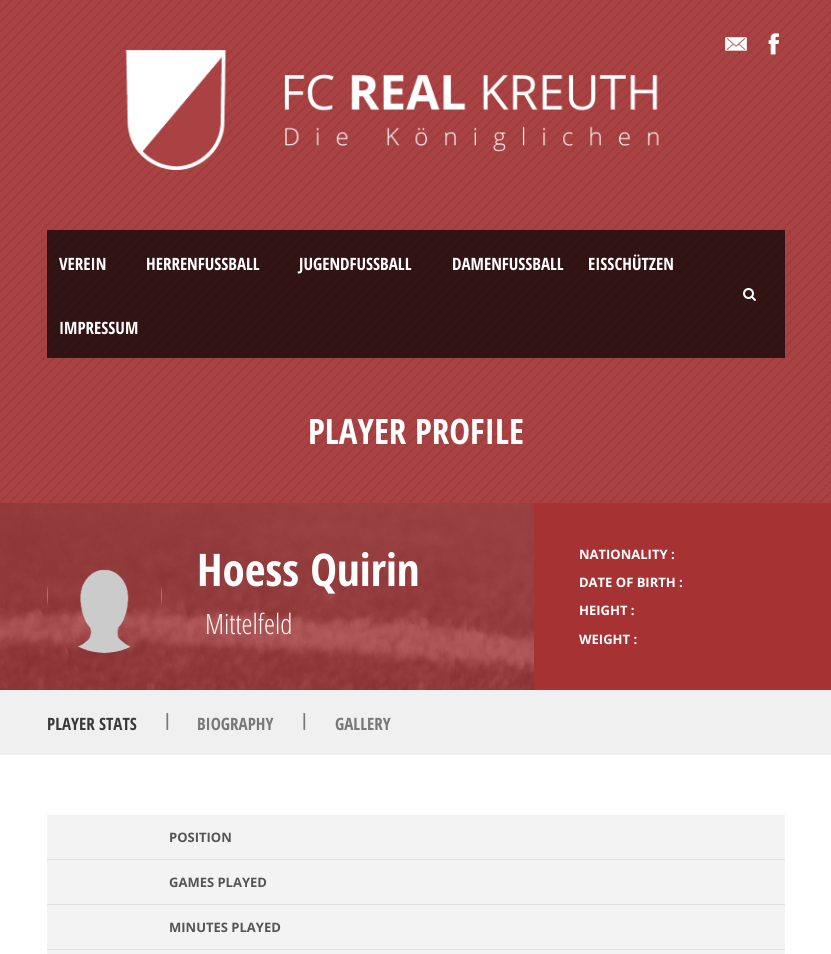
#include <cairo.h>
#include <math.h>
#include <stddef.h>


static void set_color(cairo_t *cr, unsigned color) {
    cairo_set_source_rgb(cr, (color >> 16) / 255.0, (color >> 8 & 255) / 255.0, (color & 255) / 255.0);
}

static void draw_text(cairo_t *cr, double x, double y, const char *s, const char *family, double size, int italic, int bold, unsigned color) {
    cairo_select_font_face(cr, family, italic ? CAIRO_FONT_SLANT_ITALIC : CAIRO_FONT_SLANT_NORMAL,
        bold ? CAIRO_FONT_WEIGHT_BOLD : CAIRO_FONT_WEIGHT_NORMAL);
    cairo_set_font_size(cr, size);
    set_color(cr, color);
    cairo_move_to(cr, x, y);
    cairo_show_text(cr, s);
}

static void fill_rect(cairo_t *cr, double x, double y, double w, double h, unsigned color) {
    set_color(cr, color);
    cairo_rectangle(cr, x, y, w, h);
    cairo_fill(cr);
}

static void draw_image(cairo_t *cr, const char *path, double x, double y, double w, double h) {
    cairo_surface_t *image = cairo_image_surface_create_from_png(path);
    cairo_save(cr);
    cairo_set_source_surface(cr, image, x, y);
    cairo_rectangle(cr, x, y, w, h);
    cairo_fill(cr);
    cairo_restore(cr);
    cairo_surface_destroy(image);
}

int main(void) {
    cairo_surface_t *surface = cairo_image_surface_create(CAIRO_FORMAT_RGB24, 831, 954);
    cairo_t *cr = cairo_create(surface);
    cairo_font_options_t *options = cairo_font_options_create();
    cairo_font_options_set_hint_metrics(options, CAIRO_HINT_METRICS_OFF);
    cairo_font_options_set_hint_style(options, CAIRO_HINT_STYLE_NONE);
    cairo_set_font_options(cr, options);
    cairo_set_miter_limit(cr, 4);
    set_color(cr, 0xFFFFFF);
    cairo_paint(cr);
    draw_image(cr, "assets/img1.png", 0, 0, 831, 503);
    draw_image(cr, "assets/img2.png", 725, 37, 22, 14);
    draw_image(cr, "assets/img3.png", 768, 33, 11, 22);
    draw_image(cr, "assets/img4.png", 125, 50, 534, 120);
    cairo_set_source_rgba(cr, 0, 0, 0, 0.7);
    cairo_rectangle(cr, 47, 230, 738, 128);
    cairo_fill(cr);
    draw_text(cr, 59, 270, "VEREIN", "Open Sans Condensed", 17, 0, 1, 0xFFFFFF);
    draw_text(cr, 146, 270, "HERRENFUSSBALL", "Open Sans Condensed", 17, 0, 1, 0xFFFFFF);
    draw_text(cr, 299, 270, "JUGENDFUSSBALL", "Open Sans Condensed", 17, 0, 1, 0xFFFFFF);
    draw_text(cr, 452, 270, "DAMENFUSSBALL", "Open Sans Condensed", 17, 0, 1, 0xFFFFFF);
    draw_text(cr, 588, 270, "EISSCHÜTZEN", "Open Sans Condensed", 17, 0, 1, 0xFFFFFF);
    draw_text(cr, 59, 334, "IMPRESSUM", "Open Sans Condensed", 17, 0, 1, 0xFFFFFF);
    draw_image(cr, "assets/img5.png", 743, 288, 13, 13);
    draw_text(cr, 308, 444, "PLAYER PROFILE", "Open Sans Condensed", 35, 0, 1, 0xFFFFFF);
    fill_rect(cr, 534, 503, 297, 187, 0xA73233);
    draw_image(cr, "assets/img6.png", 0, 503, 534, 187);
    draw_image(cr, "assets/img7.png", 47, 569, 115, 84);
    draw_text(cr, 197, 586, "Hoess Quirin", "Open Sans Condensed", 45, 0, 1, 0xFFFFFF);
    draw_text(cr, 205, 634, "Mittelfeld", "Open Sans Condensed Light", 28, 0, 0, 0xFFFFFF);
    draw_text(cr, 579, 559, "NATIONALITY :", "Open Sans", 13, 0, 1, 0xFFFFFF);
    draw_text(cr, 579, 587, "DATE OF BIRTH :", "Open Sans", 13, 0, 1, 0xFFFFFF);
    draw_text(cr, 579, 615, "HEIGHT :", "Open Sans", 13, 0, 1, 0xFFFFFF);
    draw_text(cr, 579, 644, "WEIGHT :", "Open Sans", 13, 0, 1, 0xFFFFFF);
    fill_rect(cr, 0, 690, 831, 65, 0xF0F0F0);
    draw_text(cr, 47, 730, "PLAYER STATS", "Open Sans Condensed", 17, 0, 1, 0x393939);
    draw_text(cr, 163, 726, "|", "Open Sans Condensed", 17, 0, 1, 0x787878);
    draw_text(cr, 197, 730, "BIOGRAPHY", "Open Sans Condensed", 17, 0, 1, 0x787878);
    draw_text(cr, 300, 726, "|", "Open Sans Condensed", 17, 0, 1, 0x787878);
    draw_text(cr, 335, 730, "GALLERY", "Open Sans Condensed", 17, 0, 1, 0x787878);
    fill_rect(cr, 47, 815, 738, 44, 0xF3F3F3);
    draw_text(cr, 169, 842, "POSITION", "Open Sans", 13, 0, 1, 0x555555);
    fill_rect(cr, 47, 860, 738, 44, 0xF3F3F3);
    fill_rect(cr, 47, 859, 738, 1, 0xE1E1E1);
    draw_text(cr, 169, 887, "GAMES PLAYED", "Open Sans", 13, 0, 1, 0x555555);
    fill_rect(cr, 47, 905, 738, 44, 0xF3F3F3);
    fill_rect(cr, 47, 904, 738, 1, 0xE1E1E1);
    draw_text(cr, 169, 932, "MINUTES PLAYED", "Open Sans", 13, 0, 1, 0x555555);
    fill_rect(cr, 47, 950, 738, 4, 0xF3F3F3);
    fill_rect(cr, 47, 949, 738, 1, 0xE1E1E1);
    cairo_surface_write_to_png(surface, "output.png");
    cairo_font_options_destroy(options);
    cairo_destroy(cr);
    cairo_surface_destroy(surface);
    return 0;
}
